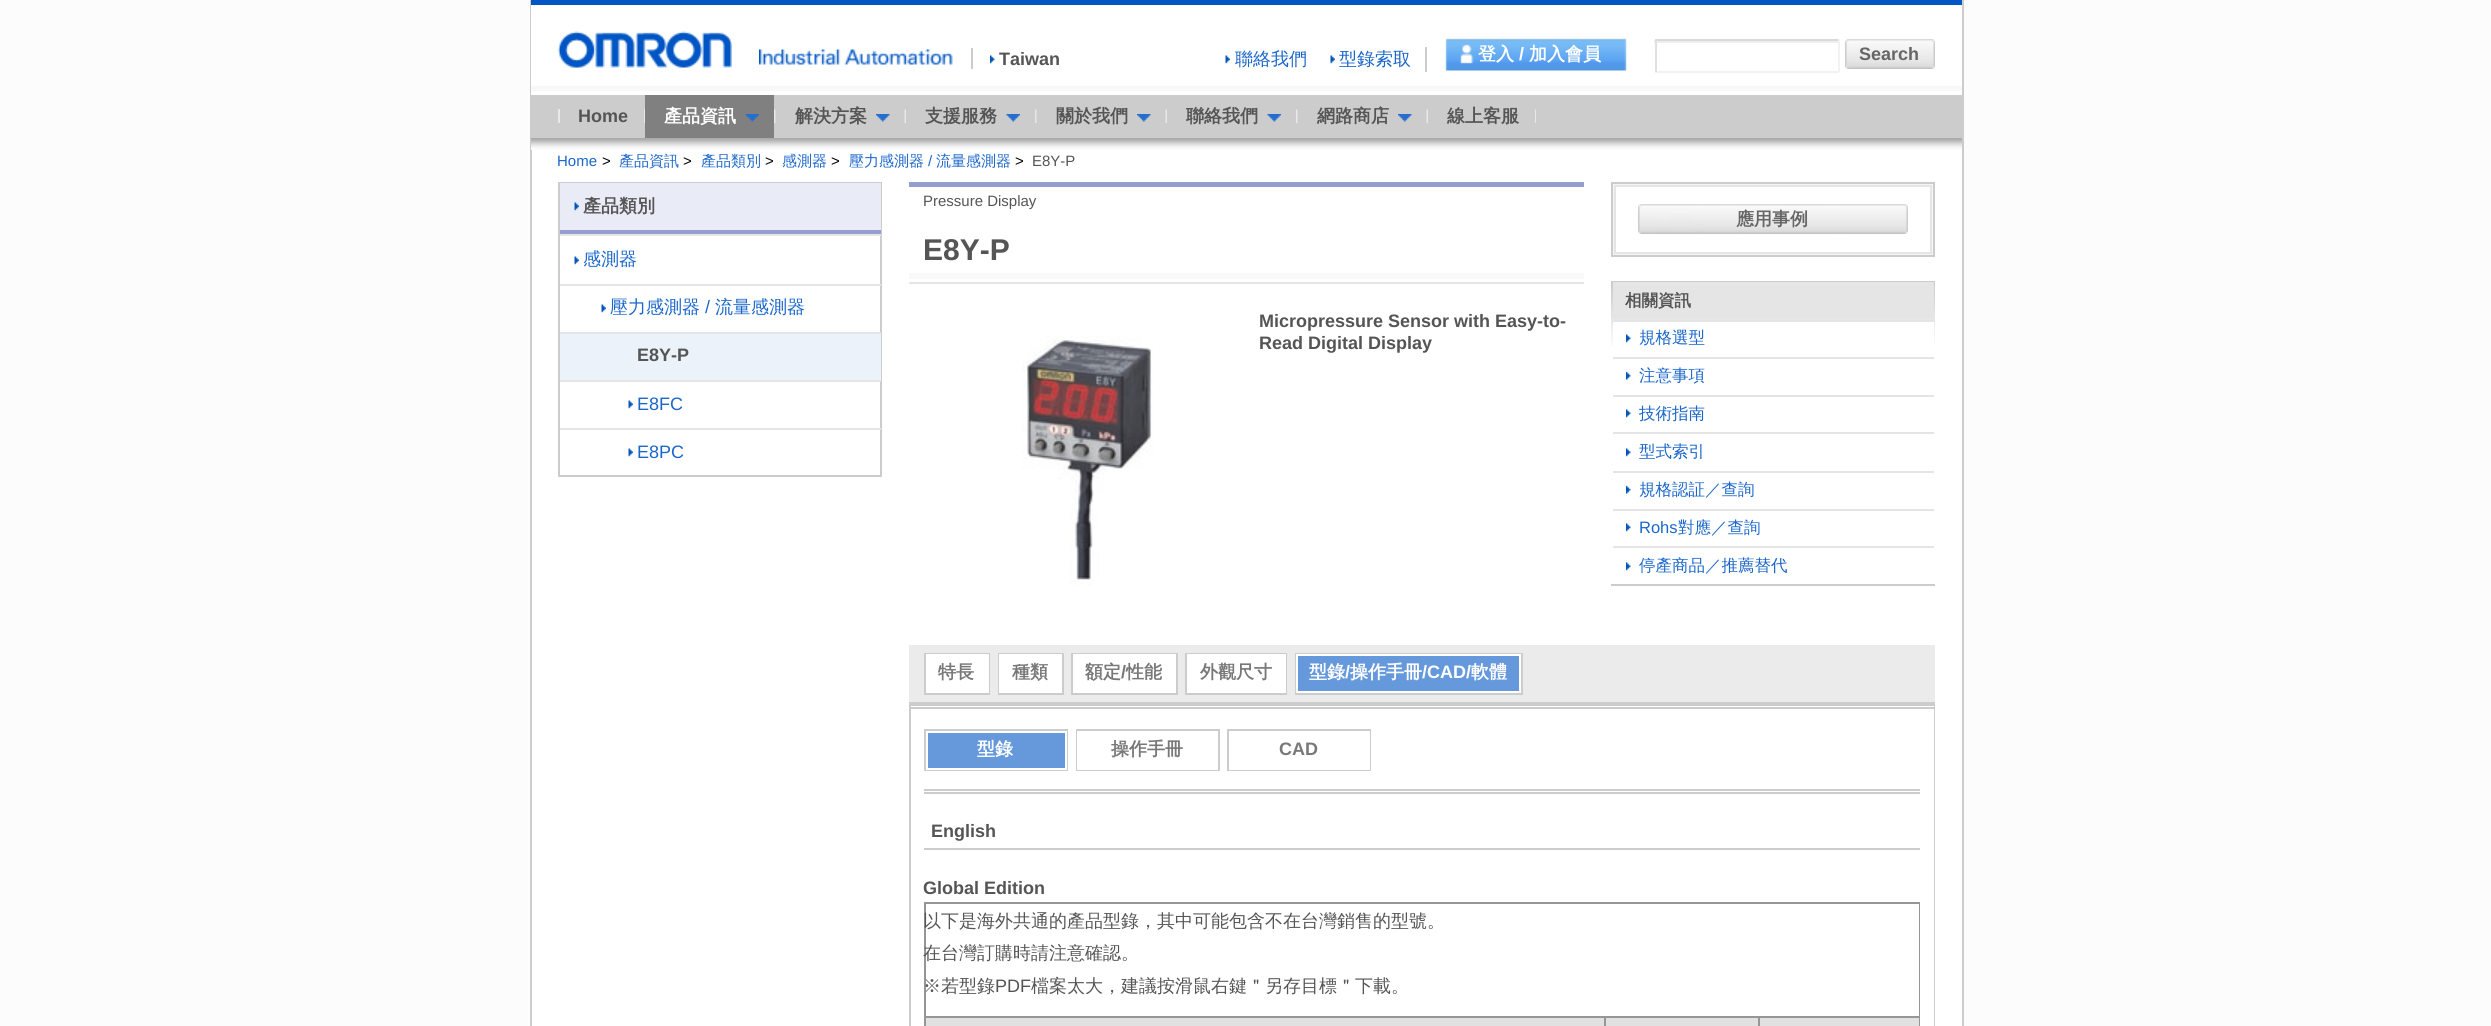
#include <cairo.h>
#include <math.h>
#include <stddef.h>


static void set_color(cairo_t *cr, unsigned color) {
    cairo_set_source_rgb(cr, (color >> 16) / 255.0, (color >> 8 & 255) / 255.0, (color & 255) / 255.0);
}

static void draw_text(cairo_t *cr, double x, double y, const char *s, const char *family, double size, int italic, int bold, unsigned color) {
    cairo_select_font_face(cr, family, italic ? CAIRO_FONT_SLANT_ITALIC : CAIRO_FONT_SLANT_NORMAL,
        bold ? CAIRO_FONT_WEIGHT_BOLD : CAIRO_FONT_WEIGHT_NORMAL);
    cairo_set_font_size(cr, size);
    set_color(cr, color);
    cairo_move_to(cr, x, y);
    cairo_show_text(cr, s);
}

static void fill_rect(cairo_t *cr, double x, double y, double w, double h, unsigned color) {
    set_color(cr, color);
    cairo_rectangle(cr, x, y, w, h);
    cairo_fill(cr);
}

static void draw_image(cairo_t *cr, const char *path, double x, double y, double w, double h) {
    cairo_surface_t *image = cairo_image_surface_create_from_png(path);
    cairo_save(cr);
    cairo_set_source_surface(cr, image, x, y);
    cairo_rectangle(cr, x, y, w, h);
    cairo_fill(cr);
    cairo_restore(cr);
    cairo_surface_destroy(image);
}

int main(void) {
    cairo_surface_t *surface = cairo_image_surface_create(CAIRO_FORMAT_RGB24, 2491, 1026);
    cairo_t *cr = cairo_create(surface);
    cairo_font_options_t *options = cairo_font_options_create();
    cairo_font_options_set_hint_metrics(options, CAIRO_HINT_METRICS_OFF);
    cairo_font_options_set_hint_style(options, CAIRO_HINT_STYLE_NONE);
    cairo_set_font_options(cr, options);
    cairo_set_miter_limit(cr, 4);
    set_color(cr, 0xFCFCFC);
    cairo_paint(cr);
    fill_rect(cr, 532, 150, 1430, 876, 0xFFFFFF);
    fill_rect(cr, 1962, 0, 2, 1026, 0xCCCCCC);
    fill_rect(cr, 530, 0, 2, 1026, 0xCCCCCC);
    fill_rect(cr, 531, 5, 1431, 90, 0xFFFFFF);
    fill_rect(cr, 531, 86, 1431, 5, 0xF8F8F8);
    fill_rect(cr, 531, 0, 1431, 5, 0x0055C4);
    draw_image(cr, "assets/img1.png", 558, 31, 174, 37);
    draw_image(cr, "assets/img2.png", 759, 49, 194, 16);
    fill_rect(cr, 971, 48, 2, 21, 0xCCCCCC);
    draw_image(cr, "assets/img3.png", 990, 55, 5, 9);
    draw_text(cr, 999, 65, "Taiwan", "Liberation Sans", 18, 0, 1, 0x555555);
    fill_rect(cr, 1425, 47, 2, 25, 0xCCCCCC);
    draw_image(cr, "assets/img4.png", 1225, 55, 5, 9);
    draw_text(cr, 1235, 65, "聯絡我們", "WenQuanYi Zen Hei Medium", 18, 0, 0, 0x1A66CA);
    draw_image(cr, "assets/img5.png", 1330, 55, 5, 9);
    draw_text(cr, 1339, 65, "型錄索取", "WenQuanYi Zen Hei Medium", 18, 0, 0, 0x1A66CA);
    draw_image(cr, "assets/img6.png", 1445, 38, 182, 33);
    draw_text(cr, 1478, 60, "登入", "WenQuanYi Zen Hei", 18, 0, 1, 0xFFFFFF);
    draw_text(cr, 1519, 60, "/", "Liberation Sans", 18, 0, 1, 0xFFFFFF);
    draw_text(cr, 1529, 60, "加入會員", "WenQuanYi Zen Hei", 18, 0, 1, 0xFFFFFF);
    fill_rect(cr, 1654, 40, 185, 3, 0xEEEEEE);
    fill_rect(cr, 1655, 39, 184, 2, 0xD9D9D9);
    fill_rect(cr, 1838, 39, 2, 33, 0xF2F2F2);
    fill_rect(cr, 1655, 71, 184, 2, 0xF2F2F2);
    fill_rect(cr, 1655, 39, 2, 33, 0xE0E0E0);
    draw_image(cr, "assets/img7.png", 1845, 39, 90, 30);
    draw_text(cr, 1859, 60, "Search", "Liberation Sans", 18, 0, 1, 0x666666);
    fill_rect(cr, 532, 95, 1430, 43, 0xCCCCCC);
    draw_image(cr, "assets/img8.png", 531, 138, 1431, 12);
    fill_rect(cr, 558, 109, 2, 14, 0xE8E8E8);
    draw_image(cr, "assets/img9.png", 644, 109, 1, 14);
    draw_text(cr, 578, 122, "Home", "Liberation Sans", 18, 0, 1, 0x555555);
    draw_image(cr, "assets/img10.png", 774, 109, 2, 14);
    fill_rect(cr, 645, 95, 129, 43, 0x808080);
    draw_text(cr, 664, 122, "產品資訊", "WenQuanYi Zen Hei", 18, 0, 1, 0xFFFFFF);
    draw_image(cr, "assets/img11.png", 745, 114, 14, 8);
    draw_image(cr, "assets/img12.png", 904, 109, 2, 14);
    draw_text(cr, 795, 122, "解決方案", "WenQuanYi Zen Hei", 18, 0, 1, 0x555555);
    draw_image(cr, "assets/img13.png", 876, 114, 14, 8);
    draw_image(cr, "assets/img10.png", 1035, 109, 2, 14);
    draw_text(cr, 925, 122, "支援服務", "WenQuanYi Zen Hei", 18, 0, 1, 0x555555);
    draw_image(cr, "assets/img14.png", 1006, 114, 14, 8);
    draw_image(cr, "assets/img12.png", 1165, 109, 2, 14);
    draw_text(cr, 1056, 122, "關於我們", "WenQuanYi Zen Hei", 18, 0, 1, 0x555555);
    draw_image(cr, "assets/img15.png", 1137, 114, 14, 8);
    draw_image(cr, "assets/img10.png", 1296, 109, 2, 14);
    draw_text(cr, 1186, 122, "聯絡我們", "WenQuanYi Zen Hei", 18, 0, 1, 0x555555);
    draw_image(cr, "assets/img14.png", 1267, 114, 14, 8);
    draw_image(cr, "assets/img12.png", 1426, 109, 2, 14);
    draw_text(cr, 1317, 122, "網路商店", "WenQuanYi Zen Hei", 18, 0, 1, 0x555555);
    draw_image(cr, "assets/img13.png", 1398, 114, 14, 8);
    draw_image(cr, "assets/img9.png", 1535, 109, 1, 14);
    draw_text(cr, 1447, 122, "線上客服", "WenQuanYi Zen Hei", 18, 0, 1, 0x555555);
    draw_text(cr, 557, 166, "Home", "Liberation Sans", 15, 0, 0, 0x1A66CA);
    draw_text(cr, 602, 166, ">", "Liberation Sans", 15, 0, 0, 0x000000);
    draw_text(cr, 619, 166, "產品資訊", "WenQuanYi Zen Hei Medium", 15, 0, 0, 0x1A66CA);
    draw_text(cr, 683, 166, ">", "Liberation Sans", 15, 0, 0, 0x000000);
    draw_text(cr, 701, 166, "產品類別", "WenQuanYi Zen Hei Medium", 15, 0, 0, 0x1A66CA);
    draw_text(cr, 765, 166, ">", "Liberation Sans", 15, 0, 0, 0x000000);
    draw_text(cr, 782, 166, "感測器", "WenQuanYi Zen Hei Medium", 15, 0, 0, 0x1A66CA);
    draw_text(cr, 831, 166, ">", "Liberation Sans", 15, 0, 0, 0x000000);
    draw_text(cr, 849, 166, "壓力感測器", "WenQuanYi Zen Hei Medium", 15, 0, 0, 0x1A66CA);
    draw_text(cr, 928, 166, "/", "Liberation Sans", 15, 0, 0, 0x1A66CA);
    draw_text(cr, 936, 166, "流量感測器", "WenQuanYi Zen Hei Medium", 15, 0, 0, 0x1A66CA);
    draw_text(cr, 1015, 166, ">", "Liberation Sans", 15, 0, 0, 0x000000);
    draw_text(cr, 1032, 166, "E8Y-P", "Liberation Sans", 15, 0, 0, 0x555555);
    cairo_rectangle(cr, 559, 183, 322, 293);
    set_color(cr, 0xCCCCCC);
    cairo_stroke(cr);
    fill_rect(cr, 560, 183, 321, 47, 0xE9ECF6);
    fill_rect(cr, 560, 230, 321, 4, 0x929FD0);
    draw_image(cr, "assets/img16.png", 574, 202, 5, 9);
    draw_text(cr, 583, 212, "產品類別", "WenQuanYi Zen Hei", 18, 0, 1, 0x555555);
    fill_rect(cr, 560, 234, 321, 2, 0xE5E5E5);
    draw_image(cr, "assets/img5.png", 574, 256, 5, 9);
    draw_text(cr, 583, 265, "感測器", "WenQuanYi Zen Hei Medium", 18, 0, 0, 0x1A66CA);
    fill_rect(cr, 560, 284, 321, 2, 0xE5E5E5);
    draw_image(cr, "assets/img5.png", 601, 304, 5, 9);
    draw_text(cr, 610, 313, "壓力感測器", "WenQuanYi Zen Hei Medium", 18, 0, 0, 0x1A66CA);
    draw_text(cr, 705, 313, "/", "Liberation Sans", 18, 0, 0, 0x1A66CA);
    draw_text(cr, 715, 313, "流量感測器", "WenQuanYi Zen Hei Medium", 18, 0, 0, 0x1A66CA);
    fill_rect(cr, 560, 334, 321, 46, 0xEBF2F9);
    fill_rect(cr, 560, 332, 321, 2, 0xE5E5E5);
    draw_text(cr, 637, 361, "E8Y-P", "Liberation Sans", 18, 0, 1, 0x555555);
    fill_rect(cr, 560, 380, 321, 2, 0xE5E5E5);
    draw_image(cr, "assets/img5.png", 628, 400, 5, 9);
    draw_text(cr, 637, 410, "E8FC", "Liberation Sans", 18, 0, 0, 0x1A66CA);
    fill_rect(cr, 560, 428, 321, 2, 0xE5E5E5);
    draw_image(cr, "assets/img5.png", 628, 448, 5, 9);
    draw_text(cr, 637, 458, "E8PC", "Liberation Sans", 18, 0, 0, 0x1A66CA);
    fill_rect(cr, 909, 273, 675, 6, 0xF9F9F9);
    fill_rect(cr, 909, 182, 675, 5, 0x939FCF);
    fill_rect(cr, 909, 282, 675, 2, 0xE5E5E5);
    draw_text(cr, 923, 206, "Pressure Display", "Liberation Sans", 15, 0, 0, 0x555555);
    draw_text(cr, 923, 260, "E8Y-P", "Liberation Sans", 30, 0, 1, 0x555555);
    draw_image(cr, "assets/img17.png", 1022, 336, 131, 249);
    draw_text(cr, 1259, 327, "Micropressure Sensor with Easy-to-", "Liberation Sans", 18, 0, 1, 0x555555);
    draw_text(cr, 1259, 349, "Read Digital Display", "Liberation Sans", 18, 0, 1, 0x555555);
    set_color(cr, 0xF5F5F5);
    cairo_rectangle(cr, 1612, 183, 322, 73);
    cairo_fill_preserve(cr);
    set_color(cr, 0xCCCCCC);
    cairo_stroke(cr);
    set_color(cr, 0xFFFFFF);
    cairo_rectangle(cr, 1615, 186, 316, 67);
    cairo_fill_preserve(cr);
    set_color(cr, 0xE5E5E5);
    cairo_stroke(cr);
    draw_image(cr, "assets/img18.png", 1638, 204, 270, 30);
    draw_text(cr, 1736, 225, "應用事例", "WenQuanYi Zen Hei", 18, 0, 1, 0x666666);
    draw_image(cr, "assets/img19.png", 1611, 283, 324, 63);
    fill_rect(cr, 1611, 281, 324, 2, 0xCCCCCC);
    fill_rect(cr, 1611, 584, 324, 2, 0xCCCCCC);
    fill_rect(cr, 1613, 282, 321, 33, 0xE5E5E5);
    draw_text(cr, 1625, 306, "相關資訊", "WenQuanYi Zen Hei", 16.5, 0, 1, 0x555555);
    fill_rect(cr, 1613, 322, 321, 24, 0xFFFFFF);
    fill_rect(cr, 1613, 320, 321, 2, 0xE5E5E5);
    draw_image(cr, "assets/img3.png", 1626, 334, 5, 9);
    draw_text(cr, 1639, 343, "規格選型", "WenQuanYi Zen Hei Medium", 16.5, 0, 0, 0x1A66CA);
    fill_rect(cr, 1613, 357, 321, 2, 0xE5E5E5);
    draw_image(cr, "assets/img20.png", 1626, 371, 5, 9);
    draw_text(cr, 1639, 381, "注意事項", "WenQuanYi Zen Hei Medium", 16.5, 0, 0, 0x1A66CA);
    fill_rect(cr, 1613, 395, 321, 2, 0xE5E5E5);
    draw_image(cr, "assets/img3.png", 1626, 409, 5, 9);
    draw_text(cr, 1639, 419, "技術指南", "WenQuanYi Zen Hei Medium", 16.5, 0, 0, 0x1A66CA);
    fill_rect(cr, 1613, 432, 321, 2, 0xE5E5E5);
    draw_image(cr, "assets/img3.png", 1626, 448, 5, 9);
    draw_text(cr, 1639, 457, "型式索引", "WenQuanYi Zen Hei Medium", 16.5, 0, 0, 0x1A66CA);
    fill_rect(cr, 1613, 471, 321, 2, 0xE5E5E5);
    draw_image(cr, "assets/img20.png", 1626, 485, 5, 9);
    draw_text(cr, 1639, 495, "規格認証／查詢", "WenQuanYi Zen Hei Medium", 16.5, 0, 0, 0x1A66CA);
    fill_rect(cr, 1613, 509, 321, 2, 0xE5E5E5);
    draw_image(cr, "assets/img3.png", 1626, 523, 5, 9);
    draw_text(cr, 1639, 533, "Rohs", "Liberation Sans", 16.5, 0, 0, 0x1A66CA);
    draw_text(cr, 1678, 533, "對應／查詢", "WenQuanYi Zen Hei Medium", 16.5, 0, 0, 0x1A66CA);
    fill_rect(cr, 1613, 546, 321, 2, 0xE5E5E5);
    draw_image(cr, "assets/img3.png", 1626, 562, 5, 9);
    draw_text(cr, 1639, 571, "停產商品／推薦替代", "WenQuanYi Zen Hei Medium", 16.5, 0, 0, 0x1A66CA);
    fill_rect(cr, 909, 702, 1026, 324, 0xCCCCCC);
    fill_rect(cr, 909, 645, 1026, 57, 0xEBEBEB);
    cairo_rectangle(cr, 925, 654, 64, 40);
    set_color(cr, 0xCCCCCC);
    cairo_stroke(cr);
    fill_rect(cr, 926, 654, 63, 39, 0xFFFFFF);
    draw_text(cr, 938, 678, "特長", "WenQuanYi Zen Hei", 18, 0, 1, 0x787878);
    cairo_rectangle(cr, 999, 654, 64, 40);
    set_color(cr, 0xCCCCCC);
    cairo_stroke(cr);
    fill_rect(cr, 999, 654, 63, 39, 0xFFFFFF);
    draw_text(cr, 1012, 678, "種類", "WenQuanYi Zen Hei", 18, 0, 1, 0x787878);
    cairo_rectangle(cr, 1072, 654, 105, 40);
    set_color(cr, 0xCCCCCC);
    cairo_stroke(cr);
    fill_rect(cr, 1073, 654, 103, 39, 0xFFFFFF);
    draw_text(cr, 1085, 678, "額定", "WenQuanYi Zen Hei", 18, 0, 1, 0x787878);
    draw_text(cr, 1121, 678, "/", "Liberation Sans", 18, 0, 1, 0x787878);
    draw_text(cr, 1126, 678, "性能", "WenQuanYi Zen Hei", 18, 0, 1, 0x787878);
    cairo_rectangle(cr, 1186, 654, 100, 40);
    set_color(cr, 0xCCCCCC);
    cairo_stroke(cr);
    fill_rect(cr, 1187, 654, 99, 39, 0xFFFFFF);
    draw_text(cr, 1200, 678, "外觀尺寸", "WenQuanYi Zen Hei", 18, 0, 1, 0x787878);
    cairo_rectangle(cr, 1296, 654, 226, 40);
    set_color(cr, 0xCCCCCC);
    cairo_stroke(cr);
    set_color(cr, 0x6699DB);
    cairo_rectangle(cr, 1297, 655, 223, 37);
    cairo_fill_preserve(cr);
    set_color(cr, 0xFFFFFF);
    cairo_stroke(cr);
    draw_text(cr, 1309, 678, "型錄", "WenQuanYi Zen Hei", 18, 0, 1, 0xFFFFFF);
    draw_text(cr, 1345, 678, "/", "Liberation Sans", 18, 0, 1, 0xFFFFFF);
    draw_text(cr, 1350, 678, "操作手冊", "WenQuanYi Zen Hei", 18, 0, 1, 0xFFFFFF);
    draw_text(cr, 1422, 678, "/CAD/", "Liberation Sans", 18, 0, 1, 0xFFFFFF);
    draw_text(cr, 1471, 678, "軟體", "WenQuanYi Zen Hei", 18, 0, 1, 0xFFFFFF);
    fill_rect(cr, 911, 706, 1023, 320, 0xFFFFFF);
    fill_rect(cr, 911, 707, 1023, 2, 0xCCCCCC);
    fill_rect(cr, 924, 789, 996, 2, 0xCCCCCC);
    fill_rect(cr, 924, 792, 996, 2, 0xCCCCCC);
    cairo_rectangle(cr, 925, 730, 142, 40);
    cairo_stroke(cr);
    set_color(cr, 0x6699DB);
    cairo_rectangle(cr, 927, 732, 139, 37);
    cairo_fill_preserve(cr);
    set_color(cr, 0xFFFFFF);
    cairo_stroke(cr);
    draw_text(cr, 977, 755, "型錄", "WenQuanYi Zen Hei", 18, 0, 1, 0xFFFFFF);
    cairo_rectangle(cr, 1077, 730, 142, 40);
    set_color(cr, 0xCCCCCC);
    cairo_stroke(cr);
    fill_rect(cr, 1077, 731, 141, 39, 0xFFFFFF);
    draw_text(cr, 1111, 755, "操作手冊", "WenQuanYi Zen Hei", 18, 0, 1, 0x787878);
    cairo_rectangle(cr, 1228, 730, 142, 40);
    set_color(cr, 0xCCCCCC);
    cairo_stroke(cr);
    fill_rect(cr, 1229, 731, 141, 39, 0xFFFFFF);
    draw_text(cr, 1279, 755, "CAD", "Liberation Sans", 18, 0, 1, 0x787878);
    fill_rect(cr, 924, 848, 996, 2, 0xCCCCCC);
    draw_text(cr, 931, 837, "English", "Liberation Sans", 18, 0, 1, 0x555555);
    draw_text(cr, 923, 894, "Global Edition", "Liberation Sans", 18, 0, 1, 0x555555);
    fill_rect(cr, 924, 902, 996, 2, 0x969696);
    fill_rect(cr, 1919, 902, 1, 124, 0x969696);
    fill_rect(cr, 924, 902, 2, 124, 0x969696);
    draw_text(cr, 923, 927, "以下是海外共通的產品型錄，其中可能包含不在台灣銷售的型號。", "WenQuanYi Zen Hei Medium", 18, 0, 0, 0x555555);
    draw_text(cr, 923, 959, "在台灣訂購時請注意確認。", "WenQuanYi Zen Hei Medium", 18, 0, 0, 0x555555);
    draw_text(cr, 923, 992, "※若型錄", "WenQuanYi Zen Hei Medium", 18, 0, 0, 0x555555);
    draw_text(cr, 995, 992, "PDF", "Liberation Sans", 18, 0, 0, 0x555555);
    draw_text(cr, 1031, 992, "檔案太大，建議按滑鼠右鍵＂另存目標＂下載。", "WenQuanYi Zen Hei Medium", 18, 0, 0, 0x555555);
    fill_rect(cr, 926, 1018, 678, 8, 0xE1E1E1);
    fill_rect(cr, 1758, 1016, 162, 2, 0x969696);
    fill_rect(cr, 1758, 1016, 2, 10, 0x969696);
    fill_rect(cr, 1604, 1016, 156, 2, 0x969696);
    fill_rect(cr, 1604, 1016, 2, 10, 0x969696);
    fill_rect(cr, 924, 1016, 681, 2, 0x969696);
    fill_rect(cr, 1606, 1018, 152, 8, 0xE1E1E1);
    fill_rect(cr, 1760, 1018, 159, 8, 0xE1E1E1);
    cairo_surface_write_to_png(surface, "output.png");
    cairo_font_options_destroy(options);
    cairo_destroy(cr);
    cairo_surface_destroy(surface);
    return 0;
}
